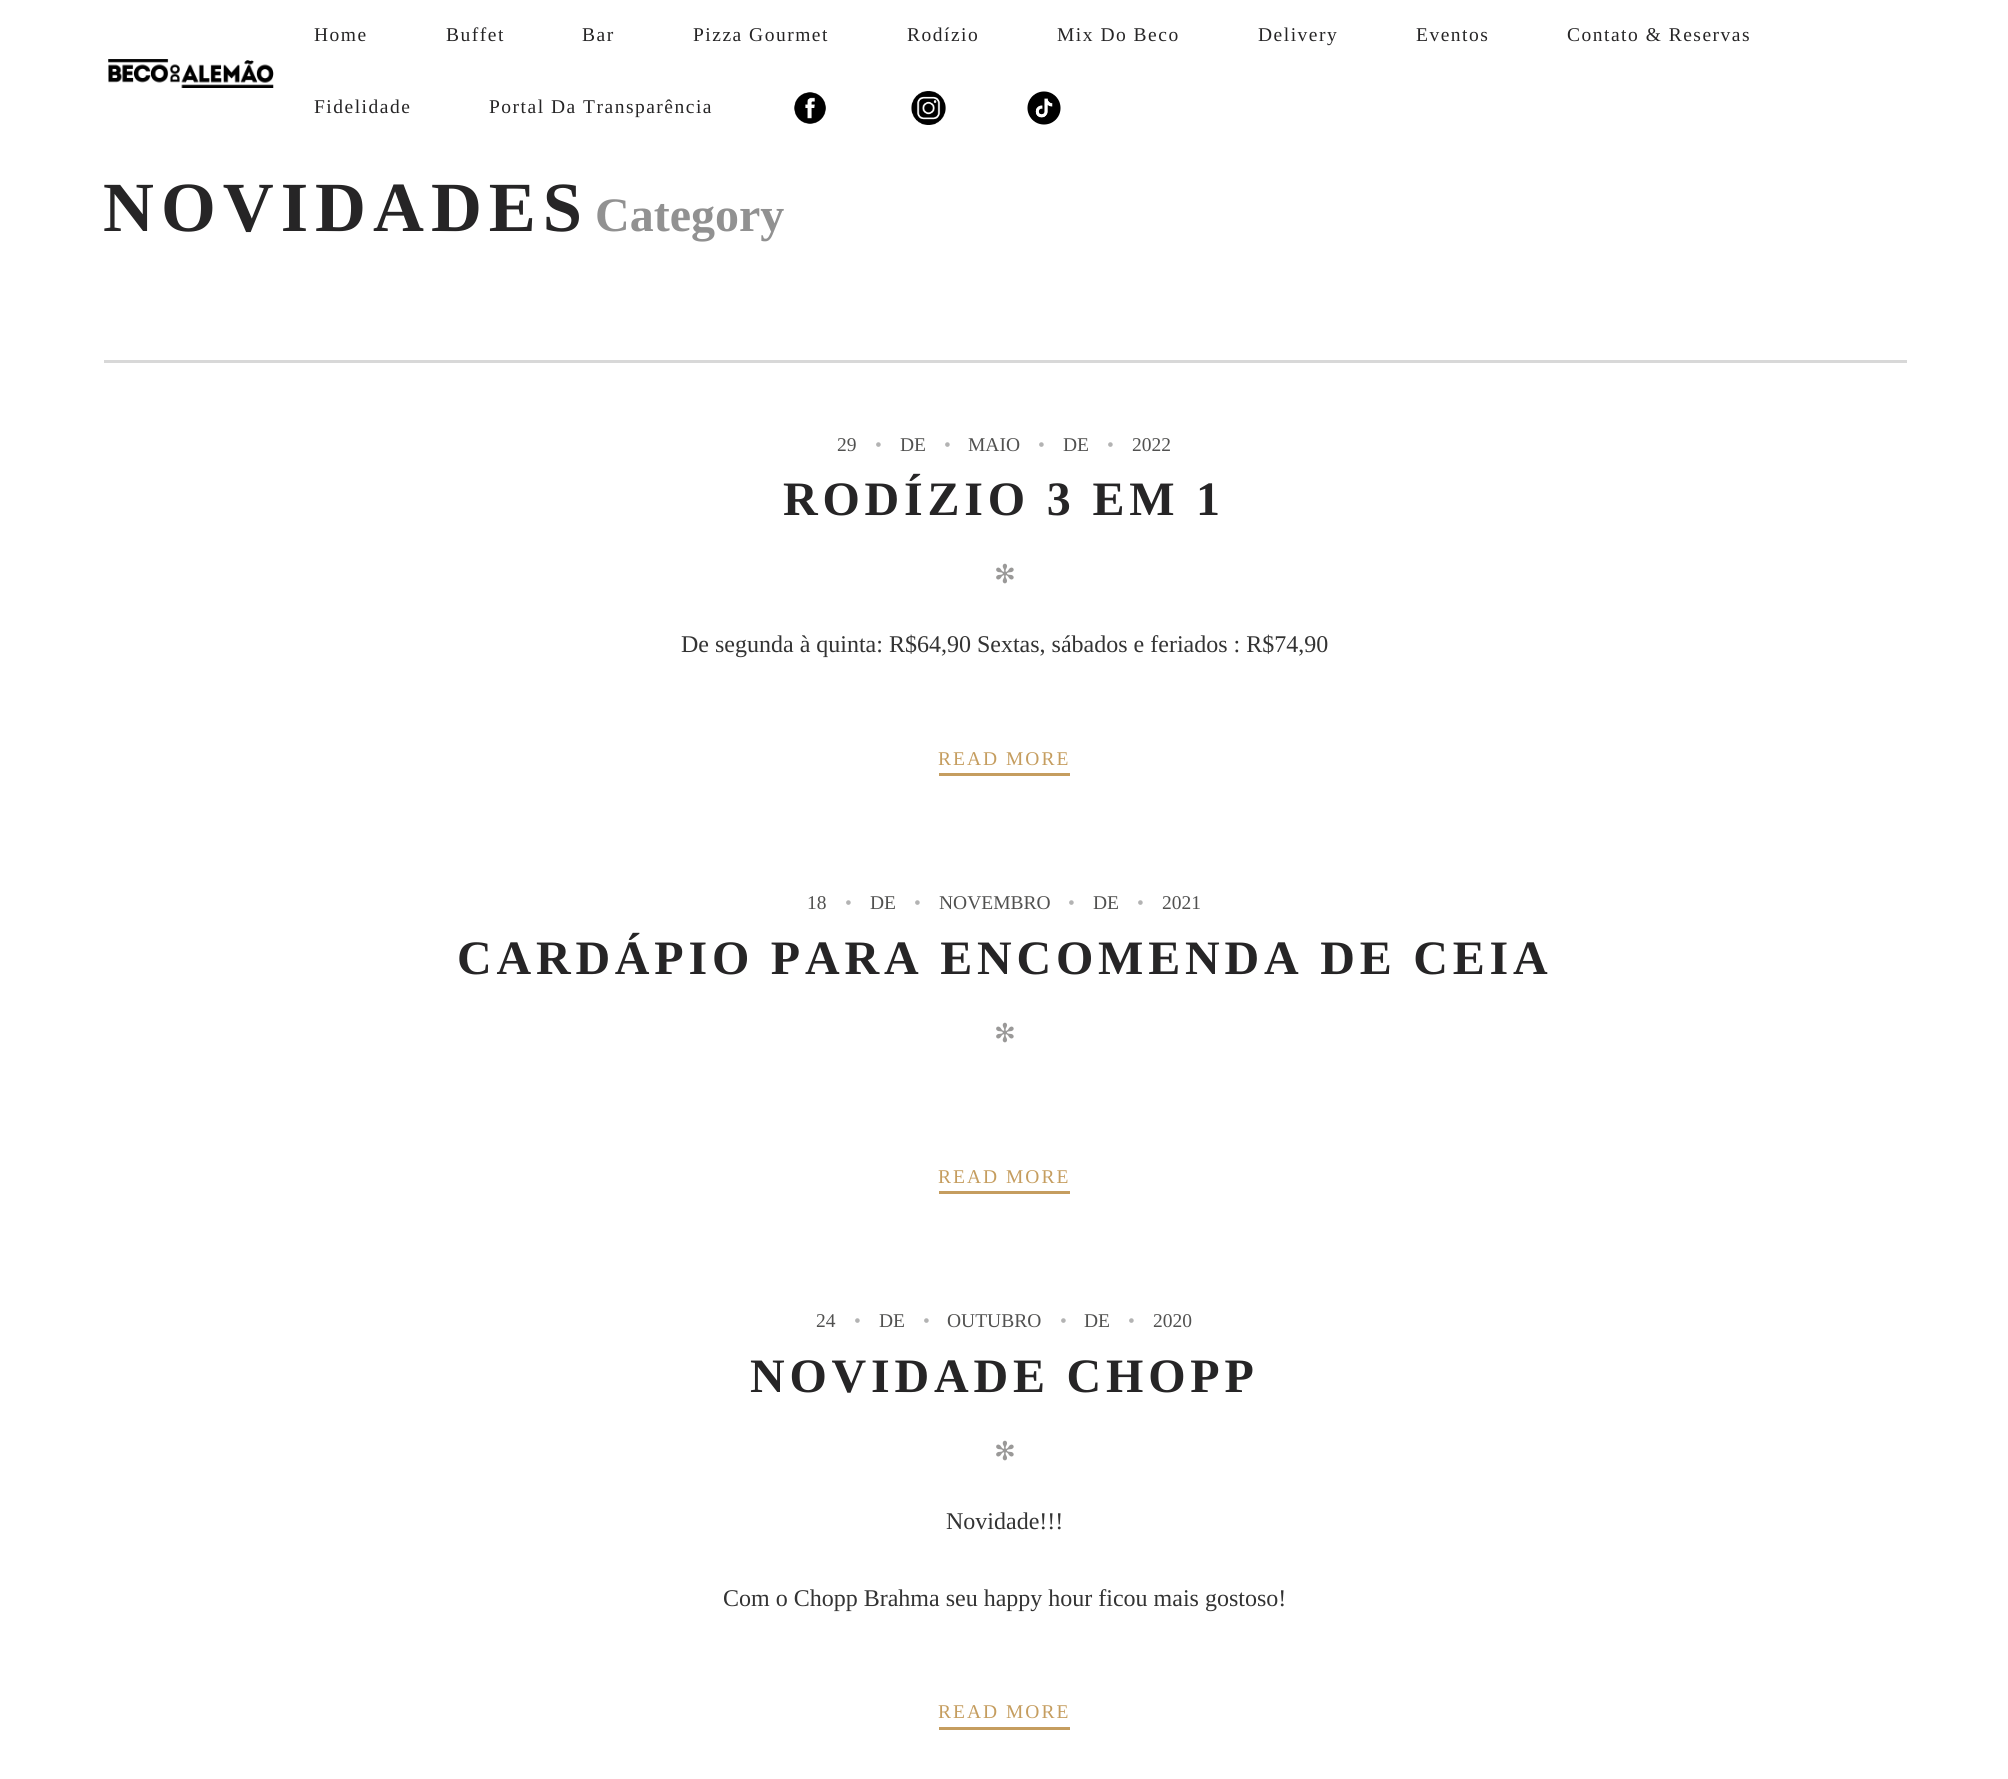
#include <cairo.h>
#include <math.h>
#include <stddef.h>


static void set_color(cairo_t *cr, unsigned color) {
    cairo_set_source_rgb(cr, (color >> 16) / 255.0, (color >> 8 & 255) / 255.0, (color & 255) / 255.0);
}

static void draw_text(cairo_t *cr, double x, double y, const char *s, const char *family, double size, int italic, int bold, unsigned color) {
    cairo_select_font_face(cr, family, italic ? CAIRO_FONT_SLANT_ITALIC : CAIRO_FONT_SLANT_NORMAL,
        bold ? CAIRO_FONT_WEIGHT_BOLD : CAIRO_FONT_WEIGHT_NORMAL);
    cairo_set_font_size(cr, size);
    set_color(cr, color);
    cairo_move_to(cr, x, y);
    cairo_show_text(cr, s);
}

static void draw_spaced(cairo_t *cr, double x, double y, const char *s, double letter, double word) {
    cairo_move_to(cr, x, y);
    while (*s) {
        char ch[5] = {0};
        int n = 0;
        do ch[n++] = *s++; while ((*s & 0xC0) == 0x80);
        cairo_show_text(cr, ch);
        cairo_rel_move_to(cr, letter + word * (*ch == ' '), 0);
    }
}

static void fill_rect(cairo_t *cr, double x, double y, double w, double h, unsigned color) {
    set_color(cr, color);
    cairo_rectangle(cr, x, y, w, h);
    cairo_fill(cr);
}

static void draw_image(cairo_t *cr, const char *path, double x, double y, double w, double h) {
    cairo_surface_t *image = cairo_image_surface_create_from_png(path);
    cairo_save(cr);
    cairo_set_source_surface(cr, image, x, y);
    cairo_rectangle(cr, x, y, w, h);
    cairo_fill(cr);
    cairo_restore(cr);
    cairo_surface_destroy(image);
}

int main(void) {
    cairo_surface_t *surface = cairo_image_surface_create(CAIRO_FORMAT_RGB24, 2008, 1779);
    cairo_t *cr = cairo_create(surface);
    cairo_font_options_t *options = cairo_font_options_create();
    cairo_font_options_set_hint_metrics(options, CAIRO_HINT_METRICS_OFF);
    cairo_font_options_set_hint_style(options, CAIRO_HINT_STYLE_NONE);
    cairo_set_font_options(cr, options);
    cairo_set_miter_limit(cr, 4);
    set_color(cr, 0xFFFFFF);
    cairo_paint(cr);
    draw_image(cr, "assets/img1.png", 108, 59, 166, 29);
    cairo_select_font_face(cr, "Liberation Serif", CAIRO_FONT_SLANT_NORMAL, CAIRO_FONT_WEIGHT_NORMAL);
    cairo_set_font_size(cr, 19.5);
    set_color(cr, 0x262526);
    draw_spaced(cr, 314, 41, "Home", 1.5, 0);
    draw_spaced(cr, 446, 41, "Buffet", 1.5, 0);
    draw_spaced(cr, 582, 41, "Bar", 1.5, 0);
    draw_spaced(cr, 693, 41, "Pizza Gourmet", 1.5, 0);
    draw_spaced(cr, 907, 41, "Rodízio", 1.5, 0);
    draw_spaced(cr, 1057, 41, "Mix Do Beco", 1.5, 0);
    draw_spaced(cr, 1258, 41, "Delivery", 1.5, 0);
    draw_spaced(cr, 1416, 41, "Eventos", 1.5, 0);
    draw_spaced(cr, 1567, 41, "Contato & Reservas", 1.5, 0);
    draw_spaced(cr, 314, 113, "Fidelidade", 1.5, 0);
    draw_spaced(cr, 489, 113, "Portal Da Transparência", 1.5, 0);
    draw_image(cr, "assets/img2.png", 794, 92, 32, 32);
    draw_image(cr, "assets/img3.png", 911, 91, 35, 34);
    draw_image(cr, "assets/img4.png", 1027, 91, 34, 34);
    cairo_select_font_face(cr, "Liberation Serif", CAIRO_FONT_SLANT_NORMAL, CAIRO_FONT_WEIGHT_BOLD);
    cairo_set_font_size(cr, 70.5);
    draw_spaced(cr, 103, 231, "NOVIDADES", 7, 0);
    draw_text(cr, 595, 231, "Category", "Liberation Serif", 48, 0, 1, 0x919191);
    fill_rect(cr, 104, 360, 1803, 3, 0xD8D8D8);
    draw_text(cr, 837, 451, "29", "Liberation Serif", 19.5, 0, 0, 0x515150);
    draw_text(cr, 875, 451, "•", "Liberation Serif", 19.5, 0, 0, 0xB3B3B3);
    draw_text(cr, 900, 451, "DE", "Liberation Serif", 19.5, 0, 0, 0x515150);
    draw_text(cr, 944, 451, "•", "Liberation Serif", 19.5, 0, 0, 0xB3B3B3);
    draw_text(cr, 968, 451, "MAIO", "Liberation Serif", 19.5, 0, 0, 0x515150);
    draw_text(cr, 1038, 451, "•", "Liberation Serif", 19.5, 0, 0, 0xB3B3B3);
    draw_text(cr, 1063, 451, "DE", "Liberation Serif", 19.5, 0, 0, 0x515150);
    draw_text(cr, 1107, 451, "•", "Liberation Serif", 19.5, 0, 0, 0xB3B3B3);
    draw_text(cr, 1132, 451, "2022", "Liberation Serif", 19.5, 0, 0, 0x515150);
    cairo_select_font_face(cr, "Liberation Serif", CAIRO_FONT_SLANT_NORMAL, CAIRO_FONT_WEIGHT_BOLD);
    cairo_set_font_size(cr, 48);
    set_color(cr, 0x262526);
    draw_spaced(cr, 783, 515, "RODÍZIO 3 EM 1", 4.8, 0);
    draw_text(cr, 994, 583, "✻", "DejaVu Sans", 26, 0, 0, 0x9A9998);
    draw_text(cr, 681, 652, "De segunda à quinta: R$64,90 Sextas, sábados e feriados : R$74,90", "Liberation Serif", 24, 0, 0, 0x333333);
    fill_rect(cr, 939, 773, 131, 3, 0xC59D5F);
    cairo_set_font_size(cr, 19.5);
    draw_spaced(cr, 938, 765, "READ MORE", 2, 0);
    draw_text(cr, 807, 909, "18", "Liberation Serif", 19.5, 0, 0, 0x515150);
    draw_text(cr, 845, 909, "•", "Liberation Serif", 19.5, 0, 0, 0xB3B3B3);
    draw_text(cr, 870, 909, "DE", "Liberation Serif", 19.5, 0, 0, 0x515150);
    draw_text(cr, 914, 909, "•", "Liberation Serif", 19.5, 0, 0, 0xB3B3B3);
    draw_text(cr, 939, 909, "NOVEMBRO", "Liberation Serif", 19.5, 0, 0, 0x515150);
    draw_text(cr, 1068, 909, "•", "Liberation Serif", 19.5, 0, 0, 0xB3B3B3);
    draw_text(cr, 1093, 909, "DE", "Liberation Serif", 19.5, 0, 0, 0x515150);
    draw_text(cr, 1137, 909, "•", "Liberation Serif", 19.5, 0, 0, 0xB3B3B3);
    draw_text(cr, 1162, 909, "2021", "Liberation Serif", 19.5, 0, 0, 0x515150);
    cairo_select_font_face(cr, "Liberation Serif", CAIRO_FONT_SLANT_NORMAL, CAIRO_FONT_WEIGHT_BOLD);
    cairo_set_font_size(cr, 48);
    set_color(cr, 0x262526);
    draw_spaced(cr, 457, 974, "CARDÁPIO PARA ENCOMENDA DE CEIA", 4.8, 0);
    draw_text(cr, 994, 1042, "✻", "DejaVu Sans", 26, 0, 0, 0x9A9998);
    fill_rect(cr, 939, 1191, 131, 3, 0xC59D5F);
    cairo_select_font_face(cr, "Liberation Serif", CAIRO_FONT_SLANT_NORMAL, CAIRO_FONT_WEIGHT_NORMAL);
    cairo_set_font_size(cr, 19.5);
    draw_spaced(cr, 938, 1183, "READ MORE", 2, 0);
    draw_text(cr, 816, 1327, "24", "Liberation Serif", 19.5, 0, 0, 0x515150);
    draw_text(cr, 854, 1327, "•", "Liberation Serif", 19.5, 0, 0, 0xB3B3B3);
    draw_text(cr, 879, 1327, "DE", "Liberation Serif", 19.5, 0, 0, 0x515150);
    draw_text(cr, 923, 1327, "•", "Liberation Serif", 19.5, 0, 0, 0xB3B3B3);
    draw_text(cr, 947, 1327, "OUTUBRO", "Liberation Serif", 19.5, 0, 0, 0x515150);
    draw_text(cr, 1060, 1327, "•", "Liberation Serif", 19.5, 0, 0, 0xB3B3B3);
    draw_text(cr, 1084, 1327, "DE", "Liberation Serif", 19.5, 0, 0, 0x515150);
    draw_text(cr, 1128, 1327, "•", "Liberation Serif", 19.5, 0, 0, 0xB3B3B3);
    draw_text(cr, 1153, 1327, "2020", "Liberation Serif", 19.5, 0, 0, 0x515150);
    cairo_select_font_face(cr, "Liberation Serif", CAIRO_FONT_SLANT_NORMAL, CAIRO_FONT_WEIGHT_BOLD);
    cairo_set_font_size(cr, 48);
    set_color(cr, 0x262526);
    draw_spaced(cr, 750, 1392, "NOVIDADE CHOPP", 4.8, 0);
    draw_text(cr, 994, 1460, "✻", "DejaVu Sans", 26, 0, 0, 0x9A9998);
    draw_text(cr, 946, 1529, "Novidade!!!", "Liberation Serif", 24, 0, 0, 0x333333);
    draw_text(cr, 723, 1606, "Com o Chopp Brahma seu happy hour ficou mais gostoso!", "Liberation Serif", 24, 0, 0, 0x333333);
    fill_rect(cr, 939, 1727, 131, 3, 0xC59D5F);
    cairo_set_font_size(cr, 19.5);
    draw_spaced(cr, 938, 1718, "READ MORE", 2, 0);
    cairo_surface_write_to_png(surface, "output.png");
    cairo_font_options_destroy(options);
    cairo_destroy(cr);
    cairo_surface_destroy(surface);
    return 0;
}
